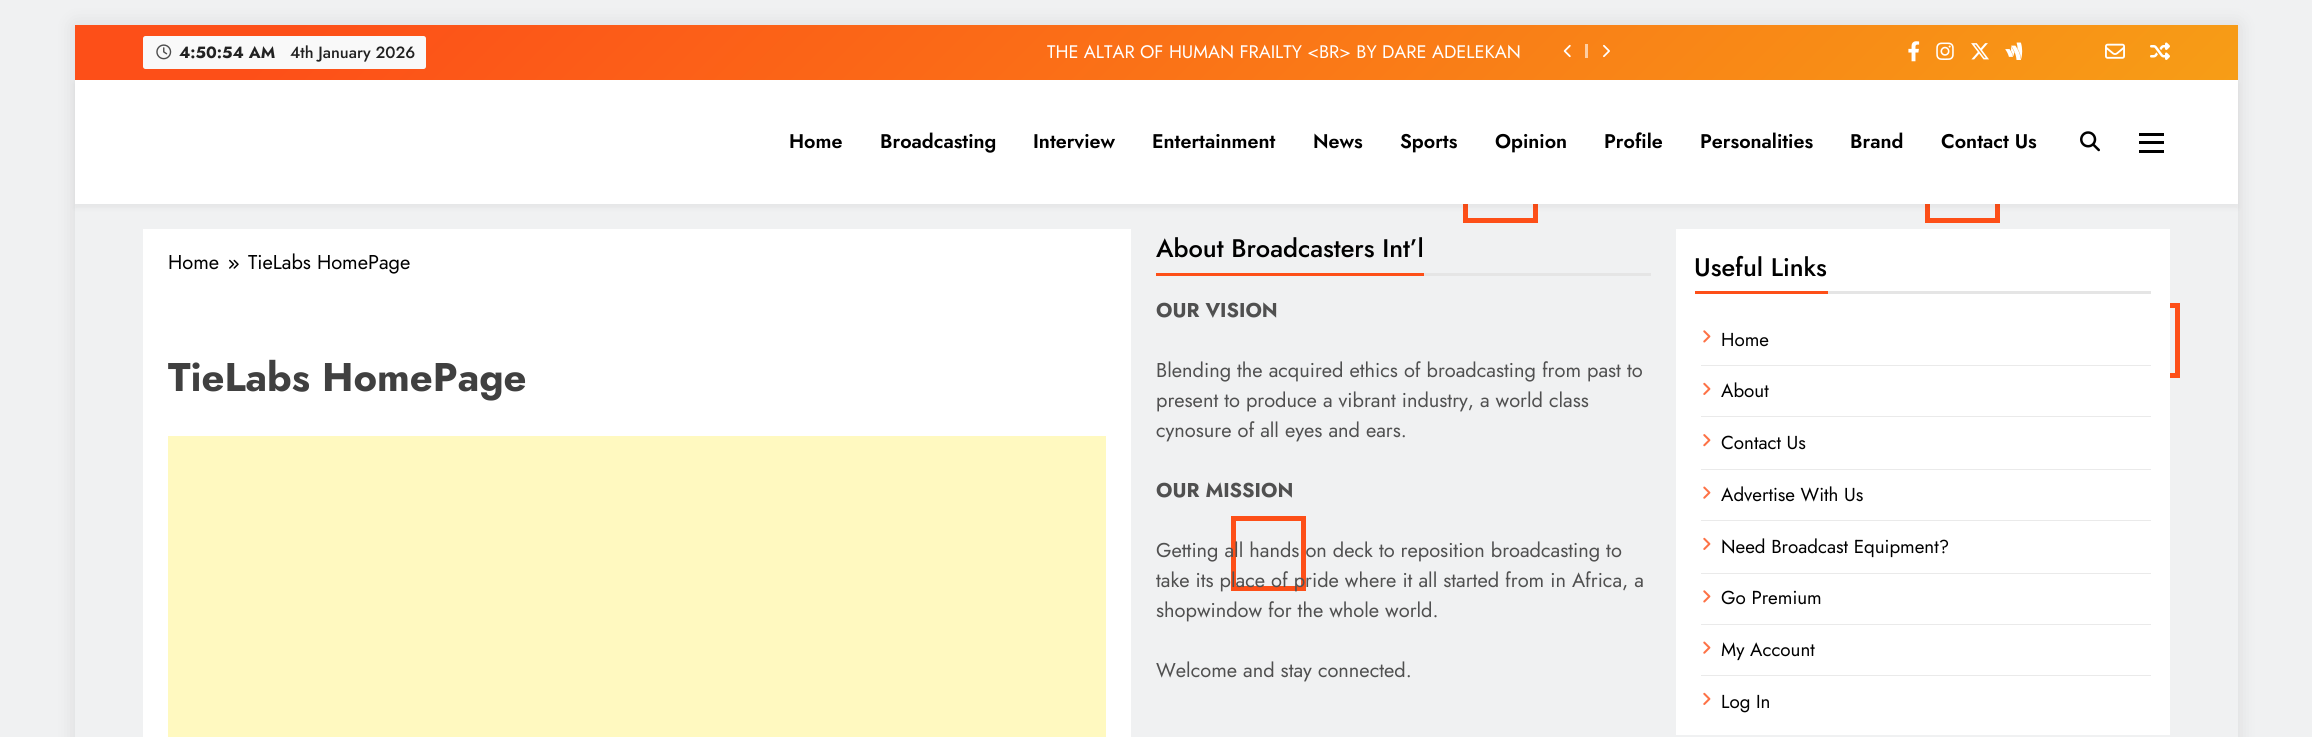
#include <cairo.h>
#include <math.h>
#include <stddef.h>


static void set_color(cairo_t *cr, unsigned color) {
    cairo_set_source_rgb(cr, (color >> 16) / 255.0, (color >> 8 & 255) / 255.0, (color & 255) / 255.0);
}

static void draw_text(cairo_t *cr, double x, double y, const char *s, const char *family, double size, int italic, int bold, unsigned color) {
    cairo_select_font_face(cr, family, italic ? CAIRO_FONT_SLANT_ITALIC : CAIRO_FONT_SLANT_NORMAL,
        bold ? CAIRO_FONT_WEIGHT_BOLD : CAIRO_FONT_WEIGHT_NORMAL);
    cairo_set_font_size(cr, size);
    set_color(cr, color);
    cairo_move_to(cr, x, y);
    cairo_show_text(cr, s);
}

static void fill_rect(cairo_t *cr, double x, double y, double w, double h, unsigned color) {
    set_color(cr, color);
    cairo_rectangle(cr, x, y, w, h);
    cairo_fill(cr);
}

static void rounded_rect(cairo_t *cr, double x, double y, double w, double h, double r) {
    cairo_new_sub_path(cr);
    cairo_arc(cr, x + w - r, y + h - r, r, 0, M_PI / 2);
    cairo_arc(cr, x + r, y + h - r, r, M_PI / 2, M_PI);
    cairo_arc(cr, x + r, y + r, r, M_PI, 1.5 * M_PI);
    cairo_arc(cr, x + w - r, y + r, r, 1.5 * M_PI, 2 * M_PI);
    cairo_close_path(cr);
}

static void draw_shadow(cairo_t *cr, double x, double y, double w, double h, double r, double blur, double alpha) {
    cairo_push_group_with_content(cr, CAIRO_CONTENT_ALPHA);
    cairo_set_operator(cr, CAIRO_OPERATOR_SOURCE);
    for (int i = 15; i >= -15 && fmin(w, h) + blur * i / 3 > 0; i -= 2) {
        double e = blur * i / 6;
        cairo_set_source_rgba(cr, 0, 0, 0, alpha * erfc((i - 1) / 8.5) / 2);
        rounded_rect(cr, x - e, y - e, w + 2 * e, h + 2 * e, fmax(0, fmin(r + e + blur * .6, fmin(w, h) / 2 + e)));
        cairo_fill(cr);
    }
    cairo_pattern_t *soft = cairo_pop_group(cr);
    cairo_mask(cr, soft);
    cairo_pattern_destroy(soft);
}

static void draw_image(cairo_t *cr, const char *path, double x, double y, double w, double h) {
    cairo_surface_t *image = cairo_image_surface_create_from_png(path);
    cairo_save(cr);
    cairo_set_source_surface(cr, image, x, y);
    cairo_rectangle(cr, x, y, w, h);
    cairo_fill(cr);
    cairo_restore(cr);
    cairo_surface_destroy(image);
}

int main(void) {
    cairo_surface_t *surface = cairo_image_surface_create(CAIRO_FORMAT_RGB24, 2312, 737);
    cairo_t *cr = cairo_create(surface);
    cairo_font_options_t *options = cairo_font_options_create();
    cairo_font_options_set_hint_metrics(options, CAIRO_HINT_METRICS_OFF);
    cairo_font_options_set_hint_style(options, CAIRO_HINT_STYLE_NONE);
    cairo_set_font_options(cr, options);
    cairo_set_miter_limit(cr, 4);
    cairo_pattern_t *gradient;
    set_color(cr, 0xF0F1F2);
    cairo_paint(cr);
    cairo_rectangle(cr, 1465.5, 150.5, 70, 70);
    set_color(cr, 0xFD4F18);
    cairo_set_line_width(cr, 5);
    cairo_stroke(cr);
    cairo_rectangle(cr, 1927.5, 150.5, 70, 70);
    cairo_stroke(cr);
    cairo_rectangle(cr, 2107.5, 305.5, 70, 70);
    cairo_stroke(cr);
    cairo_rectangle(cr, 1233.5, 518.5, 70, 70);
    cairo_stroke(cr);
    cairo_save(cr);
    cairo_set_fill_rule(cr, CAIRO_FILL_RULE_EVEN_ODD);
    cairo_new_path(cr);
    cairo_move_to(cr, 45, 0);
    cairo_line_to(cr, 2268, 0);
    cairo_line_to(cr, 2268, 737);
    cairo_line_to(cr, 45, 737);
    cairo_close_path(cr);
    cairo_move_to(cr, 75, 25);
    cairo_line_to(cr, 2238, 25);
    cairo_line_to(cr, 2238, 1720);
    cairo_line_to(cr, 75, 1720);
    cairo_close_path(cr);
    cairo_clip(cr);
    set_color(cr, 0x000000);
    draw_shadow(cr, 75, 25, 2163, 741, 0, 9.5, 0.1);
    cairo_restore(cr);
    gradient = cairo_pattern_create_linear(602, -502, 1711, 607);
    cairo_pattern_add_color_stop_rgba(gradient, 0.1, 0.992, 0.31, 0.094, 1);
    cairo_pattern_add_color_stop_rgba(gradient, 1, 0.969, 0.616, 0.086, 1);
    cairo_set_source(cr, gradient);
    cairo_pattern_destroy(gradient);
    cairo_rectangle(cr, 75, 25, 2163, 55);
    cairo_fill(cr);
    set_color(cr, 0xF9F9F9);
    rounded_rect(cr, 143, 36, 283, 33, 2.5);
    cairo_fill(cr);
    draw_image(cr, "assets/img1.png", 156, 44, 16, 16);
    draw_text(cr, 179, 58, "4:50:54 AM", "Jost", 16.25, 0, 1, 0x222222);
    draw_text(cr, 290, 58, "4th January 2026", "Jost Medium", 16.25, 0, 0, 0x222222);
    draw_text(cr, 1047, 58, "THE ALTAR OF HUMAN FRAILTY <BR> BY DARE ADELEKAN", "Jost", 18.15, 0, 0, 0xFFFFFF);
    draw_image(cr, "assets/img2.png", 1563, 44, 8, 14);
    fill_rect(cr, 1585, 44, 3, 14, 0xFDCDA2);
    draw_image(cr, "assets/img3.png", 1603, 44, 7, 14);
    draw_image(cr, "assets/img4.png", 1908, 41, 12, 21);
    draw_image(cr, "assets/img5.png", 1936, 42, 18, 18);
    draw_image(cr, "assets/img6.png", 1971, 43, 18, 17);
    draw_image(cr, "assets/img7.png", 2005, 42, 18, 18);
    draw_image(cr, "assets/img8.png", 2105, 43, 20, 16);
    draw_image(cr, "assets/img9.png", 2150, 42, 20, 18);
    set_color(cr, 0x000000);
    draw_shadow(cr, 75, 84, 2163, 124, 0, 2.5, 0.05);
    fill_rect(cr, 75, 80, 2163, 124, 0xFFFFFF);
    draw_text(cr, 789, 148, "Home", "Jost SemiBold", 19.75, 0, 0, 0x000000);
    draw_text(cr, 880, 148, "Broadcasting", "Jost SemiBold", 19.75, 0, 0, 0x000000);
    draw_text(cr, 1033, 148, "Interview", "Jost SemiBold", 19.75, 0, 0, 0x000000);
    draw_text(cr, 1152, 148, "Entertainment", "Jost SemiBold", 19.75, 0, 0, 0x000000);
    draw_text(cr, 1313, 148, "News", "Jost SemiBold", 19.75, 0, 0, 0x000000);
    draw_text(cr, 1400, 148, "Sports", "Jost SemiBold", 19.75, 0, 0, 0x000000);
    draw_text(cr, 1495, 148, "Opinion", "Jost SemiBold", 19.75, 0, 0, 0x000000);
    draw_text(cr, 1604, 148, "Profile", "Jost SemiBold", 19.75, 0, 0, 0x000000);
    draw_text(cr, 1700, 148, "Personalities", "Jost SemiBold", 19.75, 0, 0, 0x000000);
    draw_text(cr, 1850, 148, "Brand", "Jost SemiBold", 19.75, 0, 0, 0x000000);
    draw_text(cr, 1941, 148, "Contact Us", "Jost SemiBold", 19.75, 0, 0, 0x000000);
    draw_image(cr, "assets/img10.png", 2080, 131, 20, 21);
    fill_rect(cr, 2139, 133, 25, 3, 0x000000);
    fill_rect(cr, 2139, 141, 25, 3, 0x000000);
    fill_rect(cr, 2139, 150, 25, 3, 0x000000);
    fill_rect(cr, 143, 229, 988, 508, 0xFFFFFF);
    draw_text(cr, 168, 269, "Home", "Jost", 20, 0, 0, 0x000000);
    draw_image(cr, "assets/img11.png", 229, 259, 10, 10);
    draw_text(cr, 248, 269, "TieLabs HomePage", "Jost", 20, 0, 0, 0x000000);
    draw_text(cr, 168, 391, "TieLabs HomePage", "Jost", 40, 0, 1, 0x404040);
    fill_rect(cr, 168, 436, 938, 301, 0xFFF9C0);
    fill_rect(cr, 1424, 273, 227, 3, 0xE5E5E5);
    fill_rect(cr, 1156, 273, 268, 3, 0xFD4F18);
    draw_text(cr, 1156, 257, "About Broadcasters Int’l", "Jost Medium", 25.4, 0, 0, 0x000000);
    draw_text(cr, 1156, 317, "OUR VISION", "Jost", 20, 0, 1, 0x505050);
    draw_text(cr, 1156, 377, "Blending the acquired ethics of broadcasting from past to", "Jost", 20, 0, 0, 0x505050);
    draw_text(cr, 1156, 407, "present to produce a vibrant industry, a world class", "Jost", 20, 0, 0, 0x505050);
    draw_text(cr, 1156, 437, "cynosure of all eyes and ears.", "Jost", 20, 0, 0, 0x505050);
    draw_text(cr, 1156, 497, "OUR MISSION", "Jost", 20, 0, 1, 0x505050);
    draw_text(cr, 1156, 557, "Getting all hands on deck to reposition broadcasting to", "Jost", 20, 0, 0, 0x505050);
    draw_text(cr, 1156, 587, "take its place of pride where it all started from in Africa, a", "Jost", 20, 0, 0, 0x505050);
    draw_text(cr, 1156, 617, "shopwindow for the whole world.", "Jost", 20, 0, 0, 0x505050);
    draw_text(cr, 1156, 677, "Welcome and stay connected.", "Jost", 20, 0, 0, 0x505050);
    fill_rect(cr, 1676, 229, 494, 506, 0xFFFFFF);
    fill_rect(cr, 1828, 291, 323, 3, 0xE5E5E5);
    fill_rect(cr, 1695, 291, 133, 3, 0xFD4F18);
    draw_text(cr, 1694, 276, "Useful Links", "Jost Medium", 25.4, 0, 0, 0x000000);
    fill_rect(cr, 1701, 365, 450, 1, 0xEAEAEA);
    draw_image(cr, "assets/img12.png", 1703, 330, 8, 13);
    draw_text(cr, 1721, 346, "Home", "Jost", 18.75, 0, 0, 0x000000);
    fill_rect(cr, 1701, 416, 450, 1, 0xEAEAEA);
    draw_image(cr, "assets/img13.png", 1703, 382, 8, 13);
    draw_text(cr, 1721, 397, "About", "Jost", 18.75, 0, 0, 0x000000);
    fill_rect(cr, 1701, 469, 450, 1, 0xEAEAEA);
    draw_image(cr, "assets/img14.png", 1703, 434, 8, 13);
    draw_text(cr, 1721, 449, "Contact Us", "Jost", 18.75, 0, 0, 0x000000);
    fill_rect(cr, 1701, 520, 450, 1, 0xEAEAEA);
    draw_image(cr, "assets/img15.png", 1703, 486, 8, 13);
    draw_text(cr, 1721, 501, "Advertise With Us", "Jost", 18.75, 0, 0, 0x000000);
    fill_rect(cr, 1701, 573, 450, 1, 0xEAEAEA);
    draw_image(cr, "assets/img13.png", 1703, 537, 8, 13);
    draw_text(cr, 1721, 553, "Need Broadcast Equipment?", "Jost", 18.75, 0, 0, 0x000000);
    fill_rect(cr, 1701, 624, 450, 1, 0xEAEAEA);
    draw_image(cr, "assets/img12.png", 1703, 590, 8, 13);
    draw_text(cr, 1721, 604, "Go Premium", "Jost", 18.75, 0, 0, 0x000000);
    fill_rect(cr, 1701, 675, 450, 1, 0xEAEAEA);
    draw_image(cr, "assets/img15.png", 1703, 641, 8, 13);
    draw_text(cr, 1721, 656, "My Account", "Jost", 18.75, 0, 0, 0x000000);
    draw_image(cr, "assets/img13.png", 1703, 692, 8, 13);
    draw_text(cr, 1721, 708, "Log In", "Jost", 18.75, 0, 0, 0x000000);
    cairo_surface_write_to_png(surface, "output.png");
    cairo_font_options_destroy(options);
    cairo_destroy(cr);
    cairo_surface_destroy(surface);
    return 0;
}
